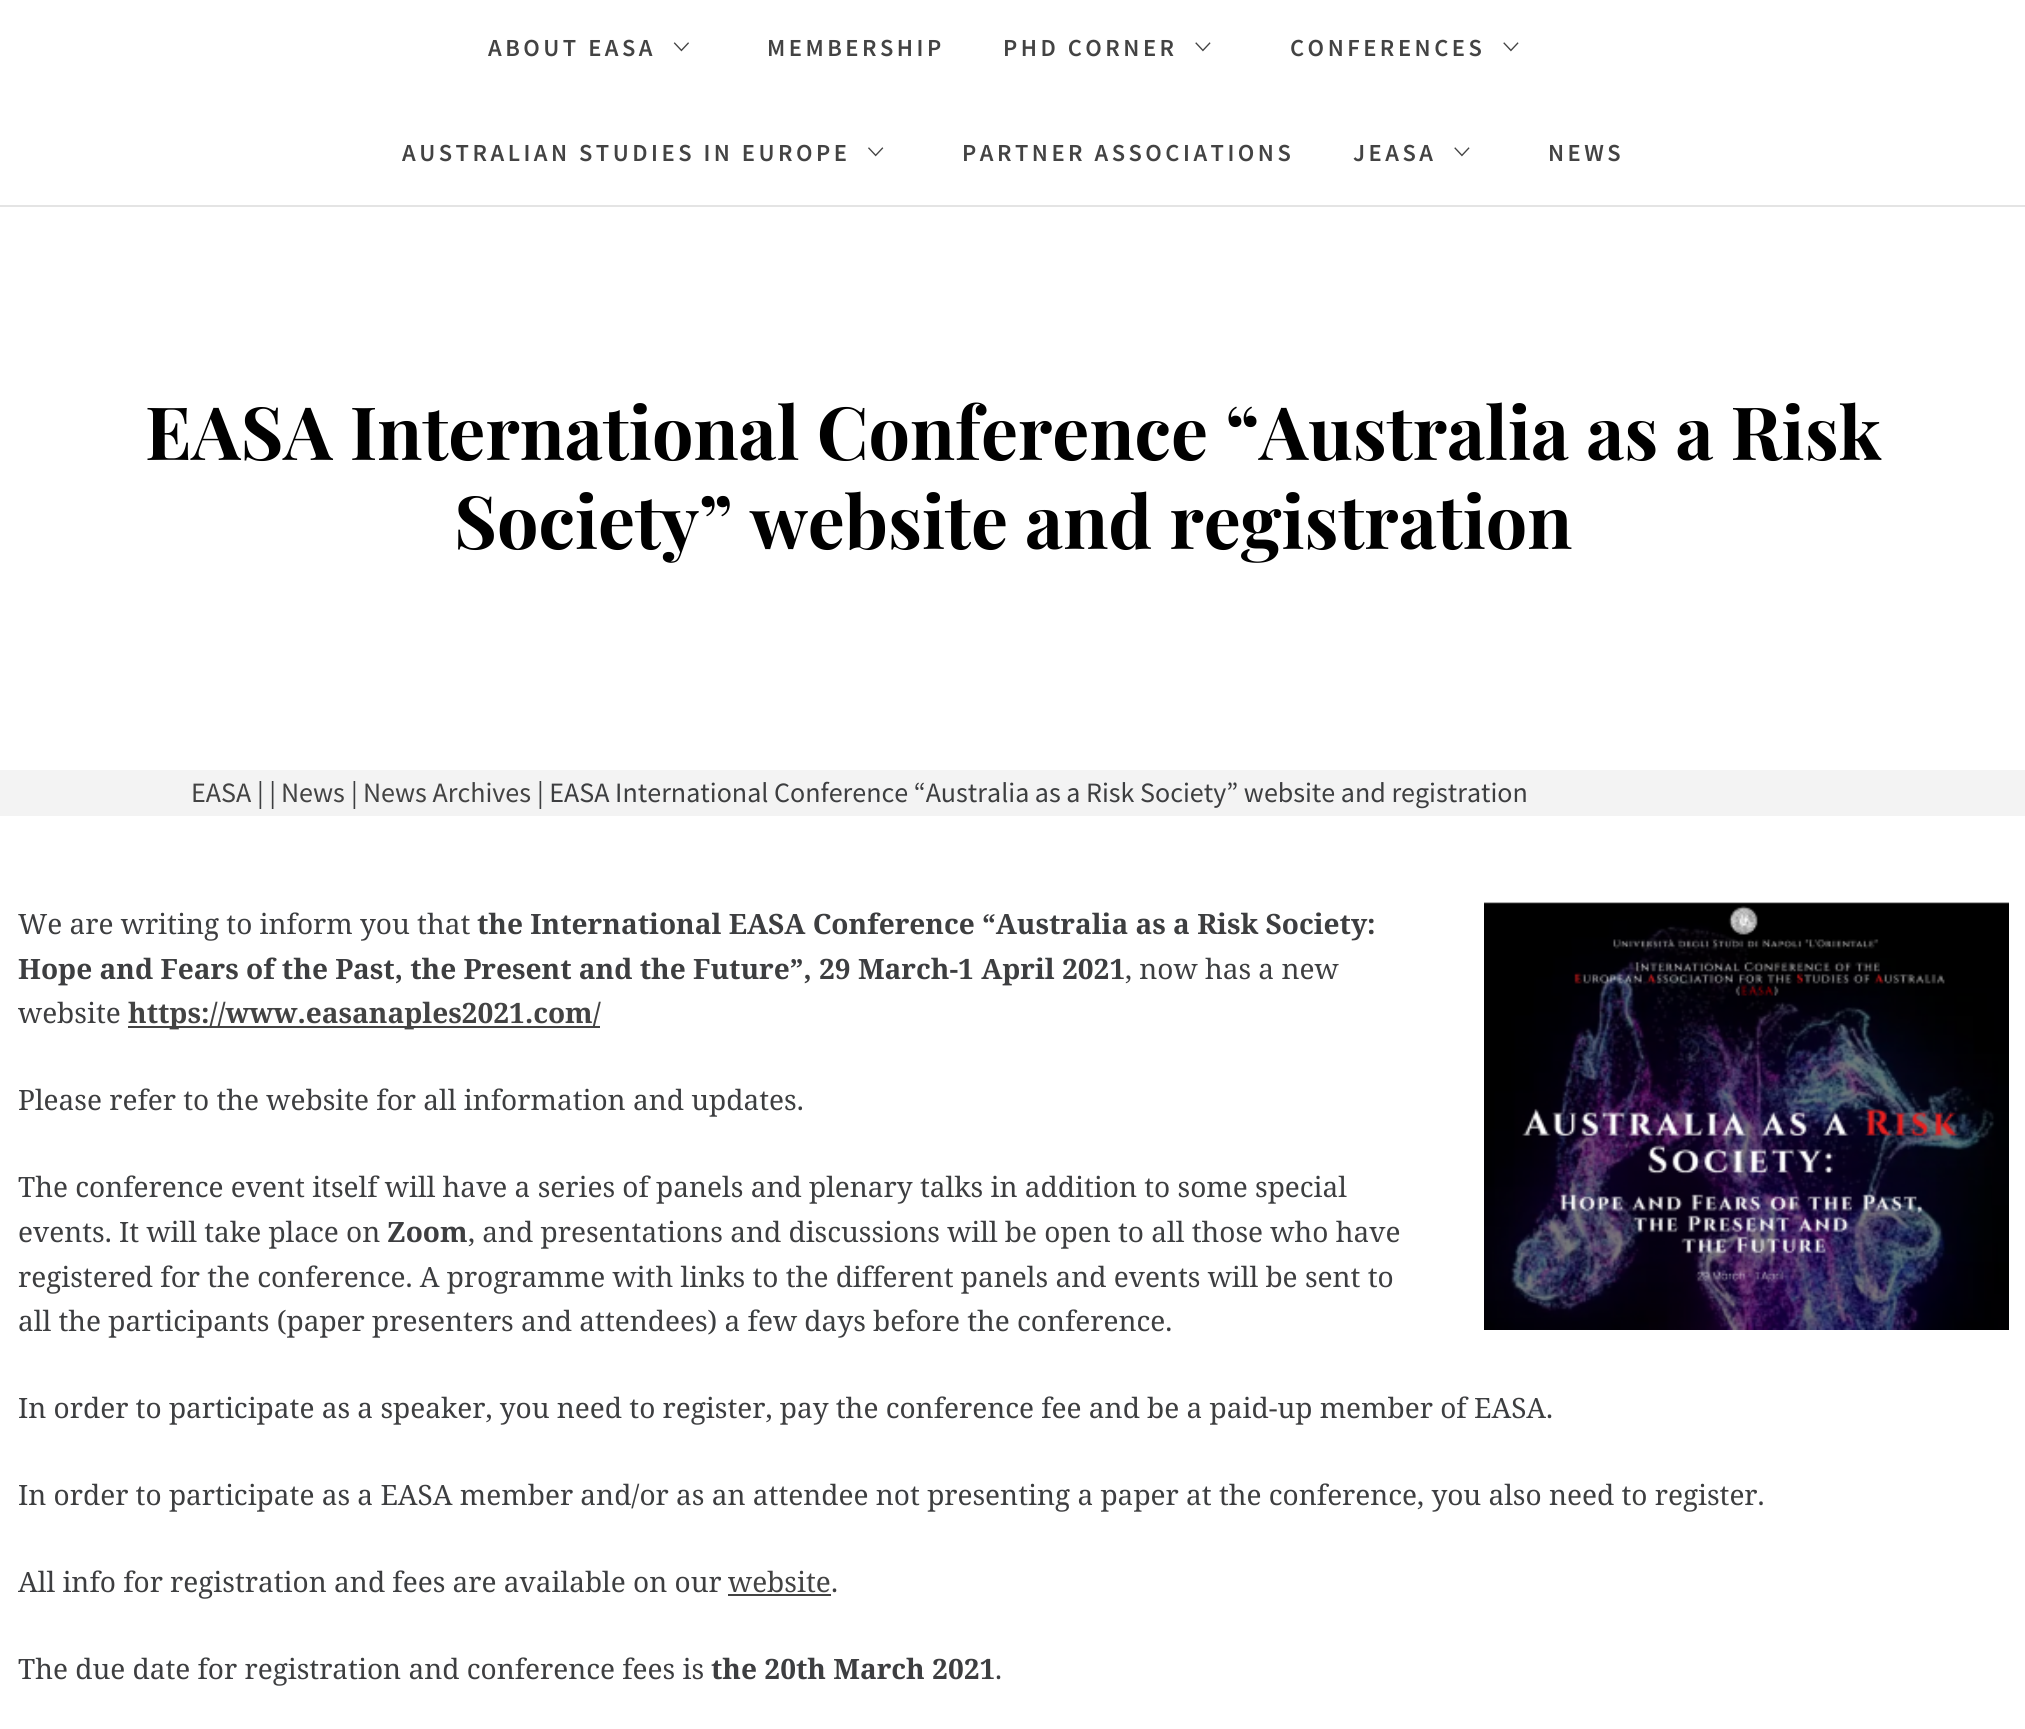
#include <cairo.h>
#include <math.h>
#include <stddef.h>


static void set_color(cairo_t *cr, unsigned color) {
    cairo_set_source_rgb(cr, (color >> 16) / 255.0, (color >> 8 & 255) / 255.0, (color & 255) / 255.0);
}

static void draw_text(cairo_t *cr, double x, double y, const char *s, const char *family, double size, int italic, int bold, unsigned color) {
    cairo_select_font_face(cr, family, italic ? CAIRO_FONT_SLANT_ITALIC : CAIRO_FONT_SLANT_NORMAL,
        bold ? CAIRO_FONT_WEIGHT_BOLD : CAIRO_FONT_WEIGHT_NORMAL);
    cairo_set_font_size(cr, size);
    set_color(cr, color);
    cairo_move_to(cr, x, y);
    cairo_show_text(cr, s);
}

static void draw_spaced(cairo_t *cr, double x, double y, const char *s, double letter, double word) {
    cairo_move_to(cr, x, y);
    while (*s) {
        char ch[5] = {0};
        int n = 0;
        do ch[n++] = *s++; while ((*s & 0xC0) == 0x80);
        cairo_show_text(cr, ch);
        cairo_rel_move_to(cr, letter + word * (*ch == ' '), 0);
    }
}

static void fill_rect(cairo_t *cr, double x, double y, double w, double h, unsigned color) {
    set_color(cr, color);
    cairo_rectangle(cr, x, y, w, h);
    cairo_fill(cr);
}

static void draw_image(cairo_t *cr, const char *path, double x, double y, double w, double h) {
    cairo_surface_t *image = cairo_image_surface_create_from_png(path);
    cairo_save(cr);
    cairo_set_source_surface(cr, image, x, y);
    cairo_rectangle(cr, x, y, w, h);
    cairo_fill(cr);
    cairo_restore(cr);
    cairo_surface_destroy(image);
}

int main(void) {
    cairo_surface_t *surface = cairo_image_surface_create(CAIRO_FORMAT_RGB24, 2025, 1729);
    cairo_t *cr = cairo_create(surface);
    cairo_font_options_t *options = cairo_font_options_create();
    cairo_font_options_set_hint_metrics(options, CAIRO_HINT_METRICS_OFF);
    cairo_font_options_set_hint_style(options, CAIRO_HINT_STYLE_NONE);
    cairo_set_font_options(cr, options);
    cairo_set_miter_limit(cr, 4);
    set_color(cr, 0xFFFFFF);
    cairo_paint(cr);
    fill_rect(cr, 0, 205, 2025, 2, 0xE4E4E4);
    cairo_select_font_face(cr, "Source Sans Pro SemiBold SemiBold", CAIRO_FONT_SLANT_NORMAL, CAIRO_FONT_WEIGHT_NORMAL);
    cairo_set_font_size(cr, 24.5);
    set_color(cr, 0x434343);
    draw_spaced(cr, 488, 56, "ABOUT EASA", 3.5, 0);
    draw_image(cr, "assets/img1.png", 673, 42, 16, 10);
    draw_spaced(cr, 767, 56, "MEMBERSHIP", 3.5, 0);
    draw_spaced(cr, 1003, 56, "PHD CORNER", 3.5, 0);
    draw_image(cr, "assets/img2.png", 1195, 42, 16, 10);
    draw_spaced(cr, 1290, 56, "CONFERENCES", 3.5, 0);
    draw_image(cr, "assets/img2.png", 1503, 42, 16, 10);
    draw_spaced(cr, 402, 161, "AUSTRALIAN STUDIES IN EUROPE", 3.5, 0);
    draw_image(cr, "assets/img3.png", 868, 147, 16, 10);
    draw_spaced(cr, 962, 161, "PARTNER ASSOCIATIONS", 3.5, 0);
    draw_spaced(cr, 1353, 161, "JEASA", 3.5, 0);
    draw_image(cr, "assets/img2.png", 1454, 147, 16, 10);
    draw_spaced(cr, 1548, 161, "NEWS", 3.5, 0);
    draw_text(cr, 145, 460, "EASA International Conference “Australia as a Risk", "Playfair Display", 73.5, 0, 1, 0x000000);
    draw_text(cr, 454, 549, "Society” website and registration", "Playfair Display", 73.5, 0, 1, 0x000000);
    fill_rect(cr, 0, 770, 2025, 46, 0xF3F3F3);
    draw_text(cr, 191, 802, "EASA", "Source Sans Pro", 28, 0, 0, 0x434343);
    draw_text(cr, 257, 802, "| |", "Source Sans Pro", 28, 0, 0, 0x3D3E40);
    draw_text(cr, 281, 802, "News", "Source Sans Pro", 28, 0, 0, 0x434343);
    draw_text(cr, 351, 802, "|", "Source Sans Pro", 28, 0, 0, 0x3D3E40);
    draw_text(cr, 363, 802, "News Archives", "Source Sans Pro", 28, 0, 0, 0x434343);
    draw_text(cr, 537, 802, "| EASA International Conference “Australia as a Risk Society” website and registration", "Source Sans Pro", 28, 0, 0, 0x3D3E40);
    draw_image(cr, "assets/img4.png", 1484, 902, 525, 428);
    draw_text(cr, 18, 934, "We are writing to inform you that", "Noto Serif", 28, 0, 0, 0x3D3E40);
    draw_text(cr, 477, 934, "the International EASA Conference “Australia as a Risk Society:", "Noto Serif", 28, 0, 1, 0x3D3E40);
    draw_text(cr, 18, 979, "Hope and Fears of the Past, the Present and the Future”, 29 March-1 April 2021", "Noto Serif", 28, 0, 1, 0x3D3E40);
    draw_text(cr, 1125, 979, ", now has a new", "Noto Serif", 28, 0, 0, 0x3D3E40);
    draw_text(cr, 18, 1023, "website", "Noto Serif", 28, 0, 0, 0x3D3E40);
    fill_rect(cr, 128, 1026, 472, 2, 0x434343);
    draw_text(cr, 128, 1023, "https://www.easanaples2021.com/", "Noto Serif", 28, 0, 1, 0x434343);
    draw_text(cr, 18, 1110, "Please refer to the website for all information and updates.", "Noto Serif", 28, 0, 0, 0x3D3E40);
    draw_text(cr, 18, 1197, "The conference event itself will have a series of panels and plenary talks in addition to some special", "Noto Serif", 28, 0, 0, 0x3D3E40);
    draw_text(cr, 18, 1242, "events. It will take place on", "Noto Serif", 28, 0, 0, 0x3D3E40);
    draw_text(cr, 387, 1242, "Zoom", "Noto Serif", 28, 0, 1, 0x3D3E40);
    draw_text(cr, 468, 1242, ", and presentations and discussions will be open to all those who have", "Noto Serif", 28, 0, 0, 0x3D3E40);
    draw_text(cr, 18, 1287, "registered for the conference. A programme with links to the different panels and events will be sent to", "Noto Serif", 28, 0, 0, 0x3D3E40);
    draw_text(cr, 18, 1331, "all the participants (paper presenters and attendees) a few days before the conference.", "Noto Serif", 28, 0, 0, 0x3D3E40);
    draw_text(cr, 18, 1418, "In order to participate as a speaker, you need to register, pay the conference fee and be a paid-up member of EASA.", "Noto Serif", 28, 0, 0, 0x3D3E40);
    draw_text(cr, 18, 1505, "In order to participate as a EASA member and/or as an attendee not presenting a paper at the conference, you also need to register.", "Noto Serif", 28, 0, 0, 0x3D3E40);
    draw_text(cr, 18, 1592, "All info for registration and fees are available on our", "Noto Serif", 28, 0, 0, 0x3D3E40);
    draw_text(cr, 728, 1592, "website", "Noto Serif", 28, 0, 0, 0x434343);
    fill_rect(cr, 728, 1594, 103, 2, 0x434343);
    draw_text(cr, 831, 1592, ".", "Noto Serif", 28, 0, 0, 0x3D3E40);
    draw_text(cr, 18, 1679, "The due date for registration and conference fees is", "Noto Serif", 28, 0, 0, 0x3D3E40);
    draw_text(cr, 711, 1679, "the 20th March 2021", "Noto Serif", 28, 0, 1, 0x3D3E40);
    draw_text(cr, 995, 1679, ".", "Noto Serif", 28, 0, 0, 0x3D3E40);
    cairo_surface_write_to_png(surface, "output.png");
    cairo_font_options_destroy(options);
    cairo_destroy(cr);
    cairo_surface_destroy(surface);
    return 0;
}
